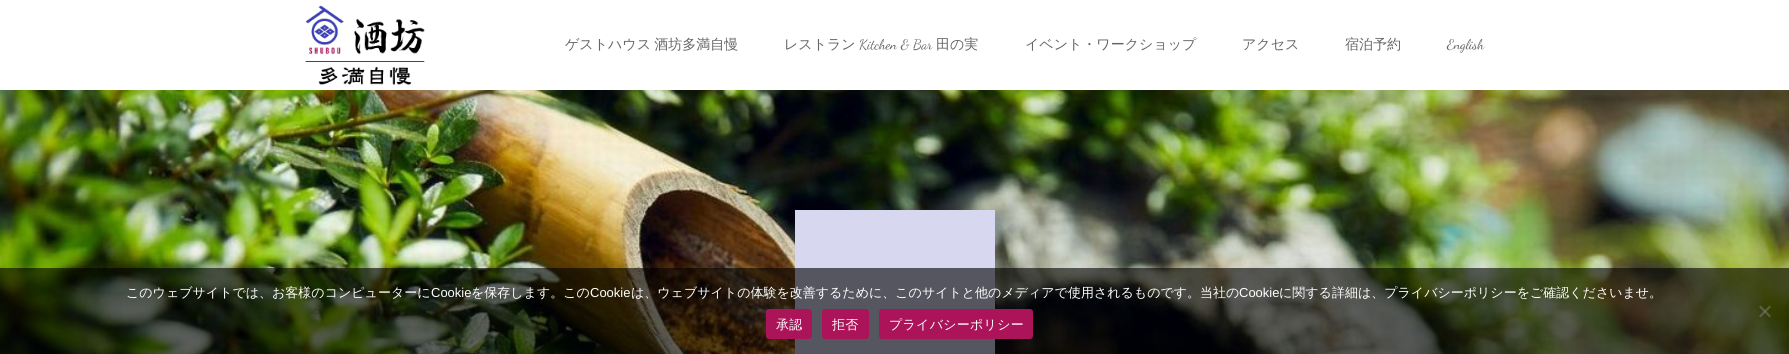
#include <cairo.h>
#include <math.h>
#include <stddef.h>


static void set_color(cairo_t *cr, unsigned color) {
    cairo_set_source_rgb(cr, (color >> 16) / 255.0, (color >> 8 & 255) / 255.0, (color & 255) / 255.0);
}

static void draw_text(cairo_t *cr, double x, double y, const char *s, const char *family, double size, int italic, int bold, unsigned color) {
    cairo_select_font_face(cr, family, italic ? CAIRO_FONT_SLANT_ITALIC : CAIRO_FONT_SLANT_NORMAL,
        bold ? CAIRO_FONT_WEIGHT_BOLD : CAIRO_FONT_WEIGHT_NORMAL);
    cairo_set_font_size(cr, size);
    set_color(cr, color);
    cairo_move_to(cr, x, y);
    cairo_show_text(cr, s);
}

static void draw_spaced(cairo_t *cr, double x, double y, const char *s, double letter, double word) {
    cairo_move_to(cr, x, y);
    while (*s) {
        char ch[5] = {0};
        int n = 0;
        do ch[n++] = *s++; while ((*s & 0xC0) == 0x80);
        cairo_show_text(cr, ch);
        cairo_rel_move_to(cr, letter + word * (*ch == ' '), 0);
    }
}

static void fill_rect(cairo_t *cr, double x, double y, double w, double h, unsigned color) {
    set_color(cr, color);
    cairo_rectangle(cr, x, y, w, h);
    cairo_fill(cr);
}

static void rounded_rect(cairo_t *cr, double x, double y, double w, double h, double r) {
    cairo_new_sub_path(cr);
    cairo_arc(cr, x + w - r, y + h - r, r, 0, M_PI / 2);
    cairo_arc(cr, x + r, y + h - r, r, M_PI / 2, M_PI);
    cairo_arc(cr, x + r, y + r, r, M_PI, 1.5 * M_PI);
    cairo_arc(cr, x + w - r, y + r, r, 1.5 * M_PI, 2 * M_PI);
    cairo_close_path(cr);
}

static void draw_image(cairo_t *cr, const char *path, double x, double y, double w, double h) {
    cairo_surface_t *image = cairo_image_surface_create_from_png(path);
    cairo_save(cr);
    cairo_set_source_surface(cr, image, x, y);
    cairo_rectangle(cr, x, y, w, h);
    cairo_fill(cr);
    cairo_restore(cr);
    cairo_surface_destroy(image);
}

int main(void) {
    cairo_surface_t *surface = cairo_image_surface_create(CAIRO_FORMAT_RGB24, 1789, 354);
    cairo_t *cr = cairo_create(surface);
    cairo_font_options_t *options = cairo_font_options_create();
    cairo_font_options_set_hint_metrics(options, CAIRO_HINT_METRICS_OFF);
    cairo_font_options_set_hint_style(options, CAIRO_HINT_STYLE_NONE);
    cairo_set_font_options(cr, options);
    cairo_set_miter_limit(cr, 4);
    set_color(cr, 0xFFFFFF);
    cairo_paint(cr);
    draw_image(cr, "assets/img1.png", 305, 5, 120, 80);
    cairo_select_font_face(cr, "WenQuanYi Zen Hei Medium", CAIRO_FONT_SLANT_NORMAL, CAIRO_FONT_WEIGHT_NORMAL);
    cairo_set_font_size(cr, 14);
    set_color(cr, 0x666666);
    draw_spaced(cr, 565, 49, "ゲストハウス 酒坊多満自慢", 0, -1);
    draw_text(cr, 784, 49, "レストラン", "WenQuanYi Zen Hei Medium", 14, 0, 0, 0x666666);
    draw_text(cr, 859, 49, "Kitchen & Bar", "Dancing Script", 14, 0, 0, 0x666666);
    draw_text(cr, 936, 49, "田の実", "WenQuanYi Zen Hei Medium", 14, 0, 0, 0x666666);
    draw_text(cr, 1025, 49, "イベント・ワークショップ", "WenQuanYi Zen Hei Medium", 14, 0, 0, 0x666666);
    draw_text(cr, 1242, 49, "アクセス", "WenQuanYi Zen Hei Medium", 14, 0, 0, 0x666666);
    draw_text(cr, 1345, 49, "宿泊予約", "WenQuanYi Zen Hei Medium", 14, 0, 0, 0x666666);
    draw_text(cr, 1447, 49, "English", "Dancing Script", 14, 0, 0, 0x666666);
    draw_image(cr, "assets/img2.png", 0, 90, 1789, 264);
    fill_rect(cr, 795, 210, 200, 144, 0xD7D8F0);
    cairo_set_source_rgba(cr, 0, 0, 0, 0.6);
    cairo_rectangle(cr, 0, 268, 1789, 86);
    cairo_fill(cr);
    draw_text(cr, 126, 297, "このウェブサイトでは、お客様のコンピューターに", "WenQuanYi Zen Hei Medium", 13, 0, 0, 0xFFFFFF);
    draw_text(cr, 431, 297, "Cookie", "Liberation Sans", 13, 0, 0, 0xFFFFFF);
    draw_text(cr, 471, 297, "を保存します。この", "WenQuanYi Zen Hei Medium", 13, 0, 0, 0xFFFFFF);
    draw_text(cr, 590, 297, "Cookie", "Liberation Sans", 13, 0, 0, 0xFFFFFF);
    draw_text(cr, 631, 297, "は、ウェブサイトの体験を改善するために、このサイトと他のメディアで使用されるものです。当社の", "WenQuanYi Zen Hei Medium", 13, 0, 0, 0xFFFFFF);
    draw_text(cr, 1239, 297, "Cookie", "Liberation Sans", 13, 0, 0, 0xFFFFFF);
    draw_text(cr, 1279, 297, "に関する詳細は、プライバシーポリシーをご確認くださいませ。", "WenQuanYi Zen Hei Medium", 13, 0, 0, 0xFFFFFF);
    cairo_set_source_rgba(cr, 0.502, 0.502, 0.502, 0.5);
    cairo_new_path(cr);
    cairo_move_to(cr, 1769.5, 305.5);
    cairo_line_to(cr, 1771, 307);
    cairo_line_to(cr, 1760.5, 317.5);
    cairo_line_to(cr, 1759, 316);
    cairo_close_path(cr);
    cairo_fill(cr);
    cairo_new_path(cr);
    cairo_move_to(cr, 1759, 307);
    cairo_line_to(cr, 1760.5, 305.5);
    cairo_line_to(cr, 1771, 316);
    cairo_line_to(cr, 1769.5, 317.5);
    cairo_close_path(cr);
    cairo_fill(cr);
    set_color(cr, 0xAC145A);
    rounded_rect(cr, 766, 309, 46, 30, 3);
    cairo_fill(cr);
    set_color(cr, 0xFFFFFF);
    draw_spaced(cr, 776, 329, "承認", 0.25, 0);
    set_color(cr, 0xAC145A);
    rounded_rect(cr, 822, 309, 47, 30, 3);
    cairo_fill(cr);
    set_color(cr, 0xFFFFFF);
    draw_spaced(cr, 832, 329, "拒否", 0.25, 0);
    set_color(cr, 0xAC145A);
    rounded_rect(cr, 879, 309, 154, 30, 3);
    cairo_fill(cr);
    set_color(cr, 0xFFFFFF);
    draw_spaced(cr, 889, 329, "プライバシーポリシー", 0.25, 0);
    cairo_surface_write_to_png(surface, "output.png");
    cairo_font_options_destroy(options);
    cairo_destroy(cr);
    cairo_surface_destroy(surface);
    return 0;
}
